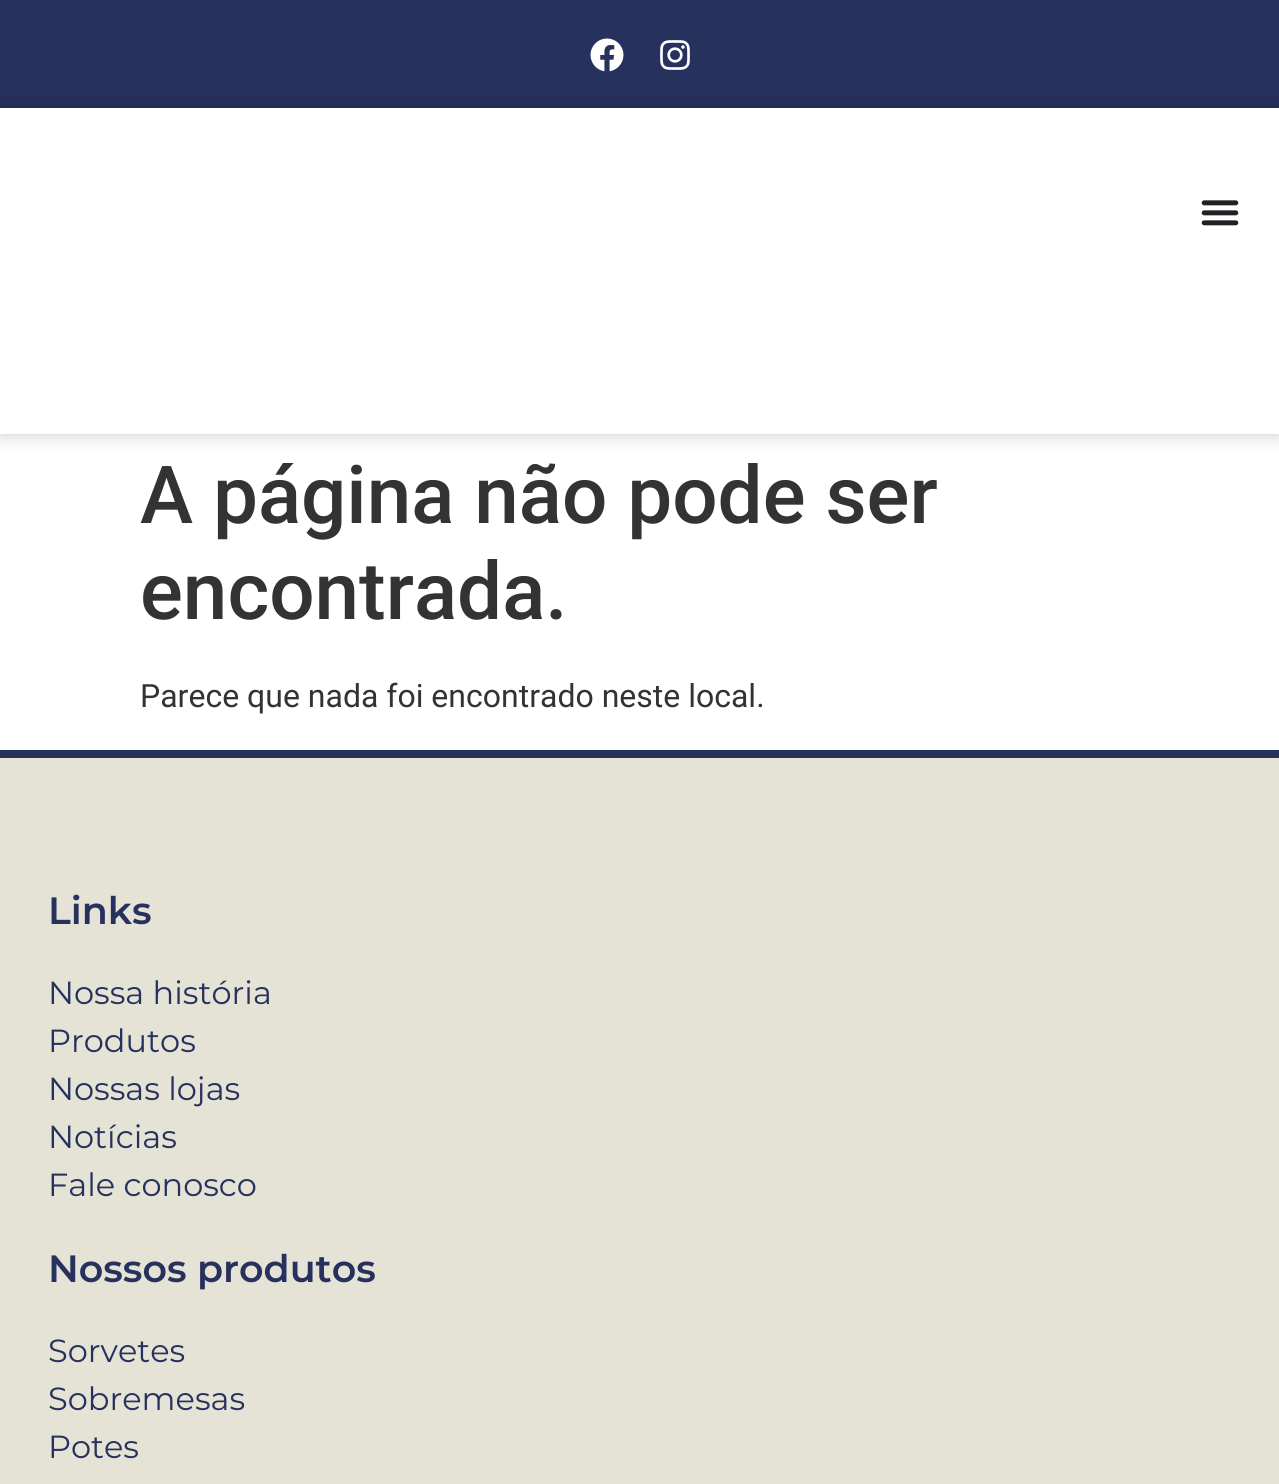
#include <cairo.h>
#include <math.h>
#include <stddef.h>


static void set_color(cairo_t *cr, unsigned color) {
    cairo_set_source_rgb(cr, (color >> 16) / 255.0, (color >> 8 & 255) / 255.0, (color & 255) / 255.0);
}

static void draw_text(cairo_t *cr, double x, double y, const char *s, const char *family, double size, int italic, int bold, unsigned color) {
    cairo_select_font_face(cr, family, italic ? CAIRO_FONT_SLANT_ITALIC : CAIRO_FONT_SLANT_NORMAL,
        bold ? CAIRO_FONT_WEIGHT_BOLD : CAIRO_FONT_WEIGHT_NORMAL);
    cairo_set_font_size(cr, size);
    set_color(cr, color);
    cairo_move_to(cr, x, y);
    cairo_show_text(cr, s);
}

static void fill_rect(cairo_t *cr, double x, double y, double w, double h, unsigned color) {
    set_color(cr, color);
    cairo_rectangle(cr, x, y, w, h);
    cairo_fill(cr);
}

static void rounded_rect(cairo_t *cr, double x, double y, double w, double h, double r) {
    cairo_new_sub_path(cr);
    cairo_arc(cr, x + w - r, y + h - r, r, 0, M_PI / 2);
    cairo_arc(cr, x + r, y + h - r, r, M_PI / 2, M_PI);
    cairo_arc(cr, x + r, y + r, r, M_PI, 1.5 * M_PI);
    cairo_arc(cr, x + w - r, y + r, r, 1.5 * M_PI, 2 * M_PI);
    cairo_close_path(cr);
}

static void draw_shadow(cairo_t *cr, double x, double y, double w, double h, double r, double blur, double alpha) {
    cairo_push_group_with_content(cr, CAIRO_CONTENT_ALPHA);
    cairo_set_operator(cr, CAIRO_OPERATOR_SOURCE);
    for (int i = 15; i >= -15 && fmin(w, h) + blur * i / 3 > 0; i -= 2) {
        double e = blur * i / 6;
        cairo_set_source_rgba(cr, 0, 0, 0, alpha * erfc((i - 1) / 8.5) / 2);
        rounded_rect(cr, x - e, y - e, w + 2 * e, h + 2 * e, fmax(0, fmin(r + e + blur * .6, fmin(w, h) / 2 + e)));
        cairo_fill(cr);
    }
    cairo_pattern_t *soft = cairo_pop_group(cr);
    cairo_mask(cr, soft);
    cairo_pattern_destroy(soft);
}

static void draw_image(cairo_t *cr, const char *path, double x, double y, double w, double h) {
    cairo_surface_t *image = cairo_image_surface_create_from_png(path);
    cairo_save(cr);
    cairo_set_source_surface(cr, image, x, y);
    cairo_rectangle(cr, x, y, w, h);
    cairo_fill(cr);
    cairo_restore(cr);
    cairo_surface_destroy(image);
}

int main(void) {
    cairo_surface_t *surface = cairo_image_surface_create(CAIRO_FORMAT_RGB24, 1279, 1484);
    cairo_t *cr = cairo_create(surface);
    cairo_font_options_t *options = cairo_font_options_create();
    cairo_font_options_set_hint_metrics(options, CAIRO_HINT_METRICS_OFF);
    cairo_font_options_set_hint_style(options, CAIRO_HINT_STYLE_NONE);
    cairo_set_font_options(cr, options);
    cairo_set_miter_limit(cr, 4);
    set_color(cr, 0xFFFFFF);
    cairo_paint(cr);
    fill_rect(cr, 0, 0, 1279, 108, 0x26315D);
    draw_image(cr, "assets/img1.png", 590, 38, 34, 34);
    draw_image(cr, "assets/img2.png", 660, 40, 30, 30);
    cairo_save(cr);
    cairo_set_fill_rule(cr, CAIRO_FILL_RULE_EVEN_ODD);
    cairo_new_path(cr);
    cairo_move_to(cr, 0, 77);
    cairo_line_to(cr, 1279, 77);
    cairo_line_to(cr, 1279, 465);
    cairo_line_to(cr, 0, 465);
    cairo_close_path(cr);
    cairo_move_to(cr, 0, 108);
    cairo_line_to(cr, 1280, 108);
    cairo_line_to(cr, 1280, 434);
    cairo_line_to(cr, 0, 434);
    cairo_close_path(cr);
    cairo_clip(cr);
    set_color(cr, 0x000000);
    draw_shadow(cr, 0, 108, 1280, 326, 0, 10, 0.22);
    cairo_restore(cr);
    draw_image(cr, "assets/img3.png", 1201, 200, 38, 26);
    draw_text(cr, 140, 523, "A página não pode ser", "Roboto Medium", 80, 0, 0, 0x333333);
    draw_text(cr, 140, 619, "encontrada.", "Roboto Medium", 80, 0, 0, 0x333333);
    draw_text(cr, 140, 707, "Parece que nada foi encontrado neste local.", "Roboto", 32, 0, 0, 0x333333);
    fill_rect(cr, 0, 750, 1279, 8, 0x26315D);
    fill_rect(cr, 0, 758, 1279, 726, 0xE5E2D6);
    draw_text(cr, 48, 924, "Links", "Montserrat SemiBold", 38, 0, 0, 0x26315D);
    draw_text(cr, 48, 1004, "Nossa história", "Montserrat", 32, 0, 0, 0x26315D);
    draw_text(cr, 48, 1052, "Produtos", "Montserrat", 32, 0, 0, 0x26315D);
    draw_text(cr, 48, 1100, "Nossas lojas", "Montserrat", 32, 0, 0, 0x26315D);
    draw_text(cr, 48, 1148, "Notícias", "Montserrat", 32, 0, 0, 0x26315D);
    draw_text(cr, 48, 1196, "Fale conosco", "Montserrat", 32, 0, 0, 0x26315D);
    draw_text(cr, 48, 1282, "Nossos produtos", "Montserrat SemiBold", 38, 0, 0, 0x26315D);
    draw_text(cr, 48, 1362, "Sorvetes", "Montserrat", 32, 0, 0, 0x26315D);
    draw_text(cr, 48, 1410, "Sobremesas", "Montserrat", 32, 0, 0, 0x26315D);
    draw_text(cr, 48, 1458, "Potes", "Montserrat", 32, 0, 0, 0x26315D);
    cairo_surface_write_to_png(surface, "output.png");
    cairo_font_options_destroy(options);
    cairo_destroy(cr);
    cairo_surface_destroy(surface);
    return 0;
}
